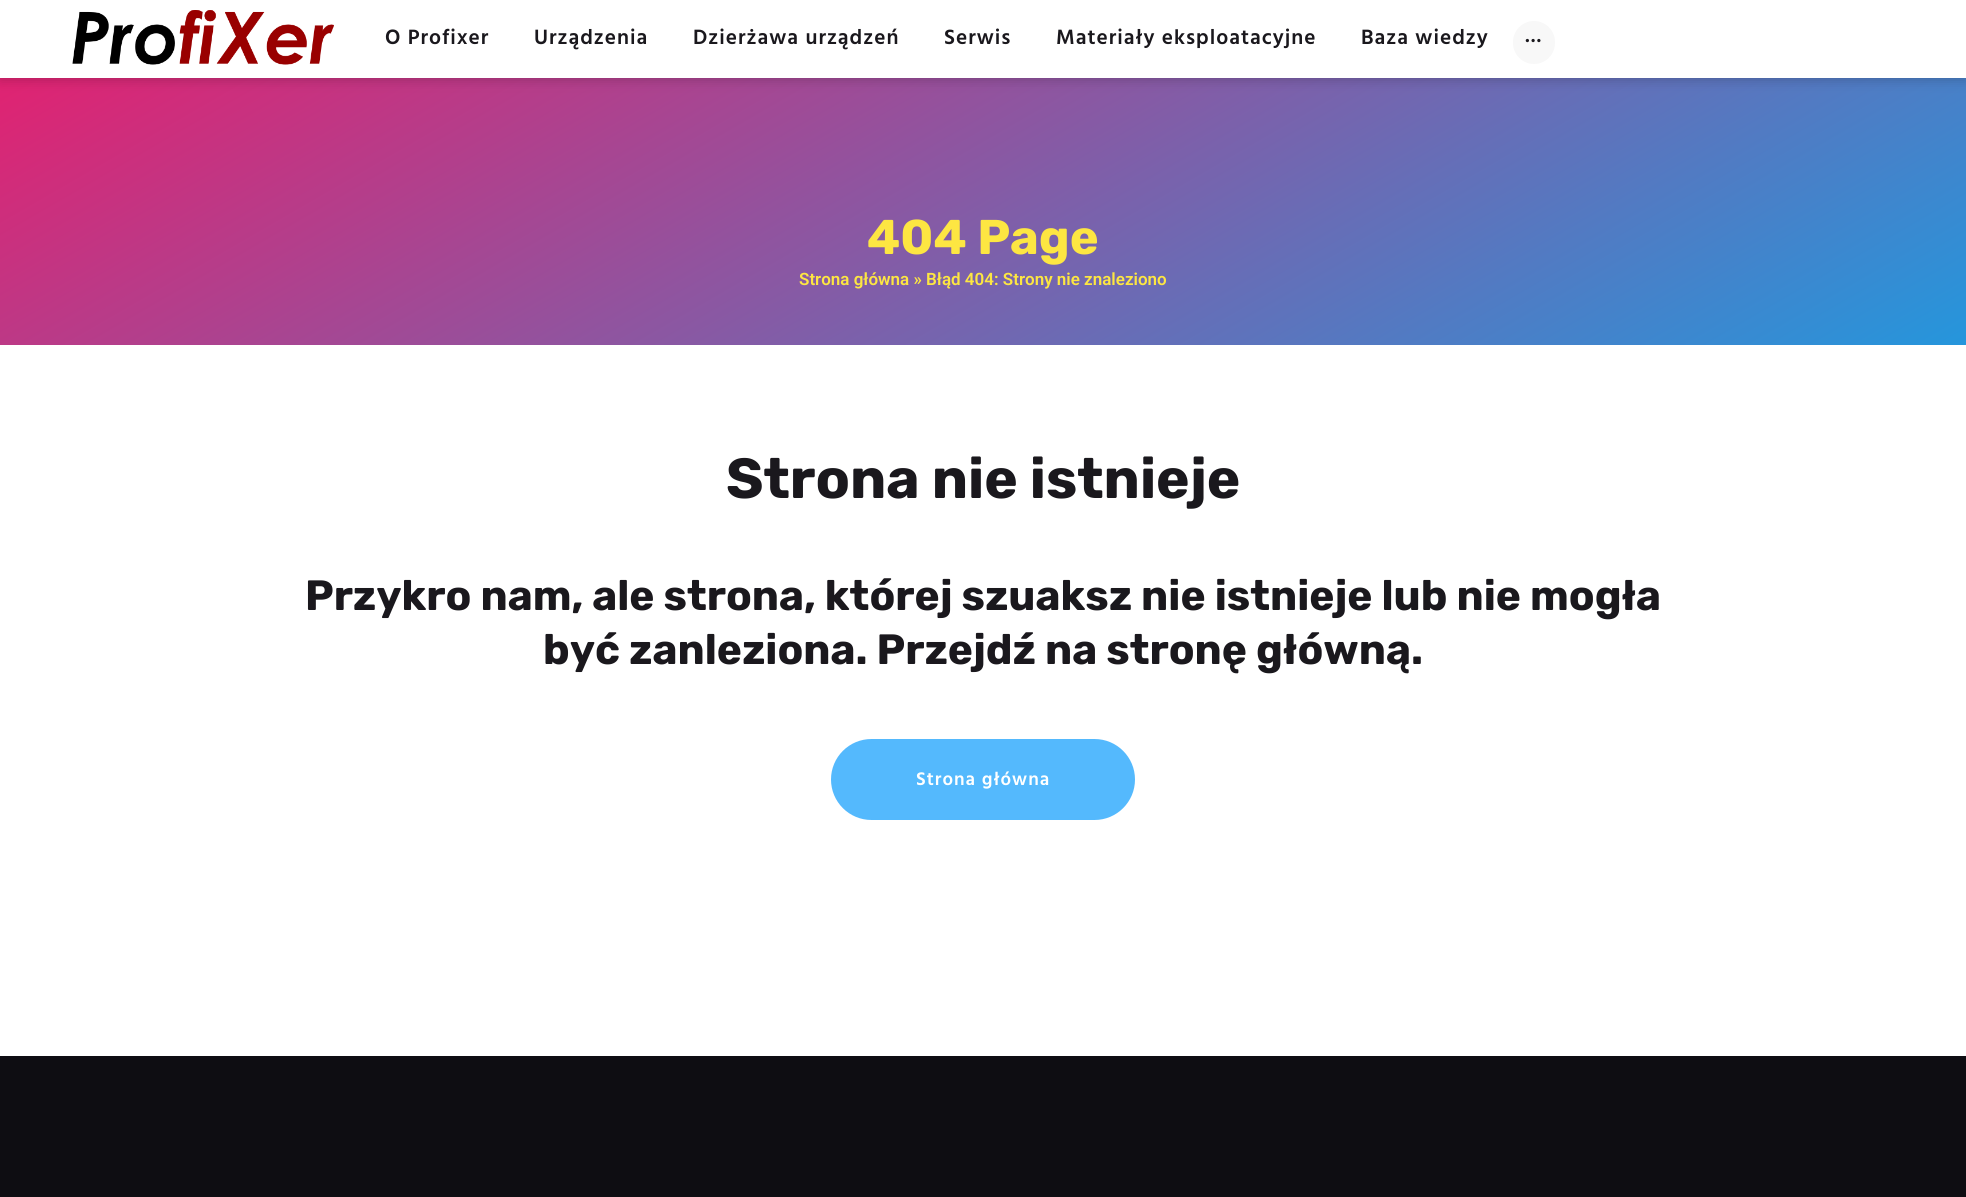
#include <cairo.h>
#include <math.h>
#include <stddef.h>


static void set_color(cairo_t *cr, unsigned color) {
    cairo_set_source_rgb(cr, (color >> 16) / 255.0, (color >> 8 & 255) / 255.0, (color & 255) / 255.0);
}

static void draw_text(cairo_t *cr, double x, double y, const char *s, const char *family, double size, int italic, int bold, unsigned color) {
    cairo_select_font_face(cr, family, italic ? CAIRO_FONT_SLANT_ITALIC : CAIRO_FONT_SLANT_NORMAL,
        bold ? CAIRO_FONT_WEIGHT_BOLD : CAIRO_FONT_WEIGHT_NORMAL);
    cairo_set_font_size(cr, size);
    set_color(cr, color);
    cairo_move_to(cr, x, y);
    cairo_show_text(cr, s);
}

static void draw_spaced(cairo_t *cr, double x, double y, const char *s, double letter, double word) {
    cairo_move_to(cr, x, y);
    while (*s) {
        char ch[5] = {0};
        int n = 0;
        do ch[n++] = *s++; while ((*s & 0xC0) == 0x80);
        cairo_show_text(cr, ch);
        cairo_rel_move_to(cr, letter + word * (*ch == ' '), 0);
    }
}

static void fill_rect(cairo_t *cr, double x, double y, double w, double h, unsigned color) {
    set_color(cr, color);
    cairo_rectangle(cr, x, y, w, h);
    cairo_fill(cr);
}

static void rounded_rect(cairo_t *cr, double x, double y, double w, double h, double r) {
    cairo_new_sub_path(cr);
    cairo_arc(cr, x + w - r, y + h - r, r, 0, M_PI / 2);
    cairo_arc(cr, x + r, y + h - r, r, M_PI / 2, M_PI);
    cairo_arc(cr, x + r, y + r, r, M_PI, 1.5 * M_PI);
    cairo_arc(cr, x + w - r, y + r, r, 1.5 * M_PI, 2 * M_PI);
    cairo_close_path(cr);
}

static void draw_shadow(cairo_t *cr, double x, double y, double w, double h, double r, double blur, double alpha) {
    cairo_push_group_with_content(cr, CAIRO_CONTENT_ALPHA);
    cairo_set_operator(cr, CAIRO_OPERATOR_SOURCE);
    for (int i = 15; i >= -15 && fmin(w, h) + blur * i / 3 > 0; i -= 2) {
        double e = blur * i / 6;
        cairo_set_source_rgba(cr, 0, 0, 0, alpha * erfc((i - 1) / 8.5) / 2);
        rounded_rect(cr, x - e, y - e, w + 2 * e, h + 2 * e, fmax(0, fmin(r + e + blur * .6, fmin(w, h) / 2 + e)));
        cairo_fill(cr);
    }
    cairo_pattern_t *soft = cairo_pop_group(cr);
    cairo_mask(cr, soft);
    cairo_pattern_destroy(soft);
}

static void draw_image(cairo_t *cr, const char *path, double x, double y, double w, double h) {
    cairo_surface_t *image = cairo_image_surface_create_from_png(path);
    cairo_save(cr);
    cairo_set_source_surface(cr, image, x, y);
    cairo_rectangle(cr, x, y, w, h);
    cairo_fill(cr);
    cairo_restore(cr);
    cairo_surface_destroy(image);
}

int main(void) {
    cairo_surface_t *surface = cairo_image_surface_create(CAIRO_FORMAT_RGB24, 1966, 1197);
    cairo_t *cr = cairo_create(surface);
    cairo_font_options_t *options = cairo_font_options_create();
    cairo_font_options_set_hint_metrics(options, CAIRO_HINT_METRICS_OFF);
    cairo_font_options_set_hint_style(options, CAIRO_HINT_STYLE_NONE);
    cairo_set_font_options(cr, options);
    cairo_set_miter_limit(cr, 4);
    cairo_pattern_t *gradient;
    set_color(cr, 0xFFFFFF);
    cairo_paint(cr);
    gradient = cairo_pattern_create_linear(675, -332, 1291, 735);
    cairo_pattern_add_color_stop_rgba(gradient, 0, 0.89, 0.129, 0.439, 1);
    cairo_pattern_add_color_stop_rgba(gradient, 1, 0.145, 0.588, 0.863, 1);
    cairo_set_source(cr, gradient);
    cairo_pattern_destroy(gradient);
    cairo_rectangle(cr, 0, 78, 1966, 267);
    cairo_fill(cr);
    set_color(cr, 0x000000);
    draw_shadow(cr, 0, 3, 1966, 77, 0, 6, 0.2);
    fill_rect(cr, 0, 0, 1966, 78, 0xFFFFFF);
    draw_image(cr, "assets/img1.png", 72, 10, 262, 55);
    cairo_select_font_face(cr, "Hind SemiBold", CAIRO_FONT_SLANT_NORMAL, CAIRO_FONT_WEIGHT_NORMAL);
    cairo_set_font_size(cr, 21.25);
    set_color(cr, 0x1A181D);
    draw_spaced(cr, 385, 44, "O Profixer", 1, 0);
    draw_spaced(cr, 534, 44, "Urządzenia", 1, 0);
    draw_spaced(cr, 693, 44, "Dzierżawa urządzeń", 1, 0);
    draw_spaced(cr, 944, 44, "Serwis", 1, 0);
    draw_spaced(cr, 1056, 44, "Materiały eksploatacyjne", 1, 0);
    draw_spaced(cr, 1361, 44, "Baza wiedzy", 1, 0);
    set_color(cr, 0xF8F8F8);
    rounded_rect(cr, 1513, 21, 42, 43, 21);
    cairo_fill(cr);
    set_color(cr, 0x1A181D);
    draw_spaced(cr, 1525, 42, "...", 1, 0);
    draw_text(cr, 867, 254, "404 Page", "Rubik", 48.75, 0, 1, 0xFDE642);
    draw_text(cr, 799, 285, "Strona główna » Błąd 404: Strony nie znaleziono", "Roboto SemiBold", 17, 0, 0, 0xFDE642);
    draw_text(cr, 726, 498, "Strona nie istnieje", "Rubik", 56.5, 0, 1, 0x1A181D);
    draw_text(cr, 305, 610, "Przykro nam, ale strona, której szuaksz nie istnieje lub nie mogła", "Rubik", 42.35, 0, 1, 0x1A181D);
    draw_text(cr, 543, 664, "być zanleziona. Przejdź na stronę główną.", "Rubik", 42.35, 0, 1, 0x1A181D);
    set_color(cr, 0x54B9FD);
    rounded_rect(cr, 831, 739, 304, 81, 40.5);
    cairo_fill(cr);
    cairo_select_font_face(cr, "Hind SemiBold", CAIRO_FONT_SLANT_NORMAL, CAIRO_FONT_WEIGHT_NORMAL);
    cairo_set_font_size(cr, 18.75);
    set_color(cr, 0xFFFFFF);
    draw_spaced(cr, 916, 785, "Strona główna", 1, 0);
    fill_rect(cr, 0, 1056, 1966, 141, 0x0E0D12);
    cairo_surface_write_to_png(surface, "output.png");
    cairo_font_options_destroy(options);
    cairo_destroy(cr);
    cairo_surface_destroy(surface);
    return 0;
}
